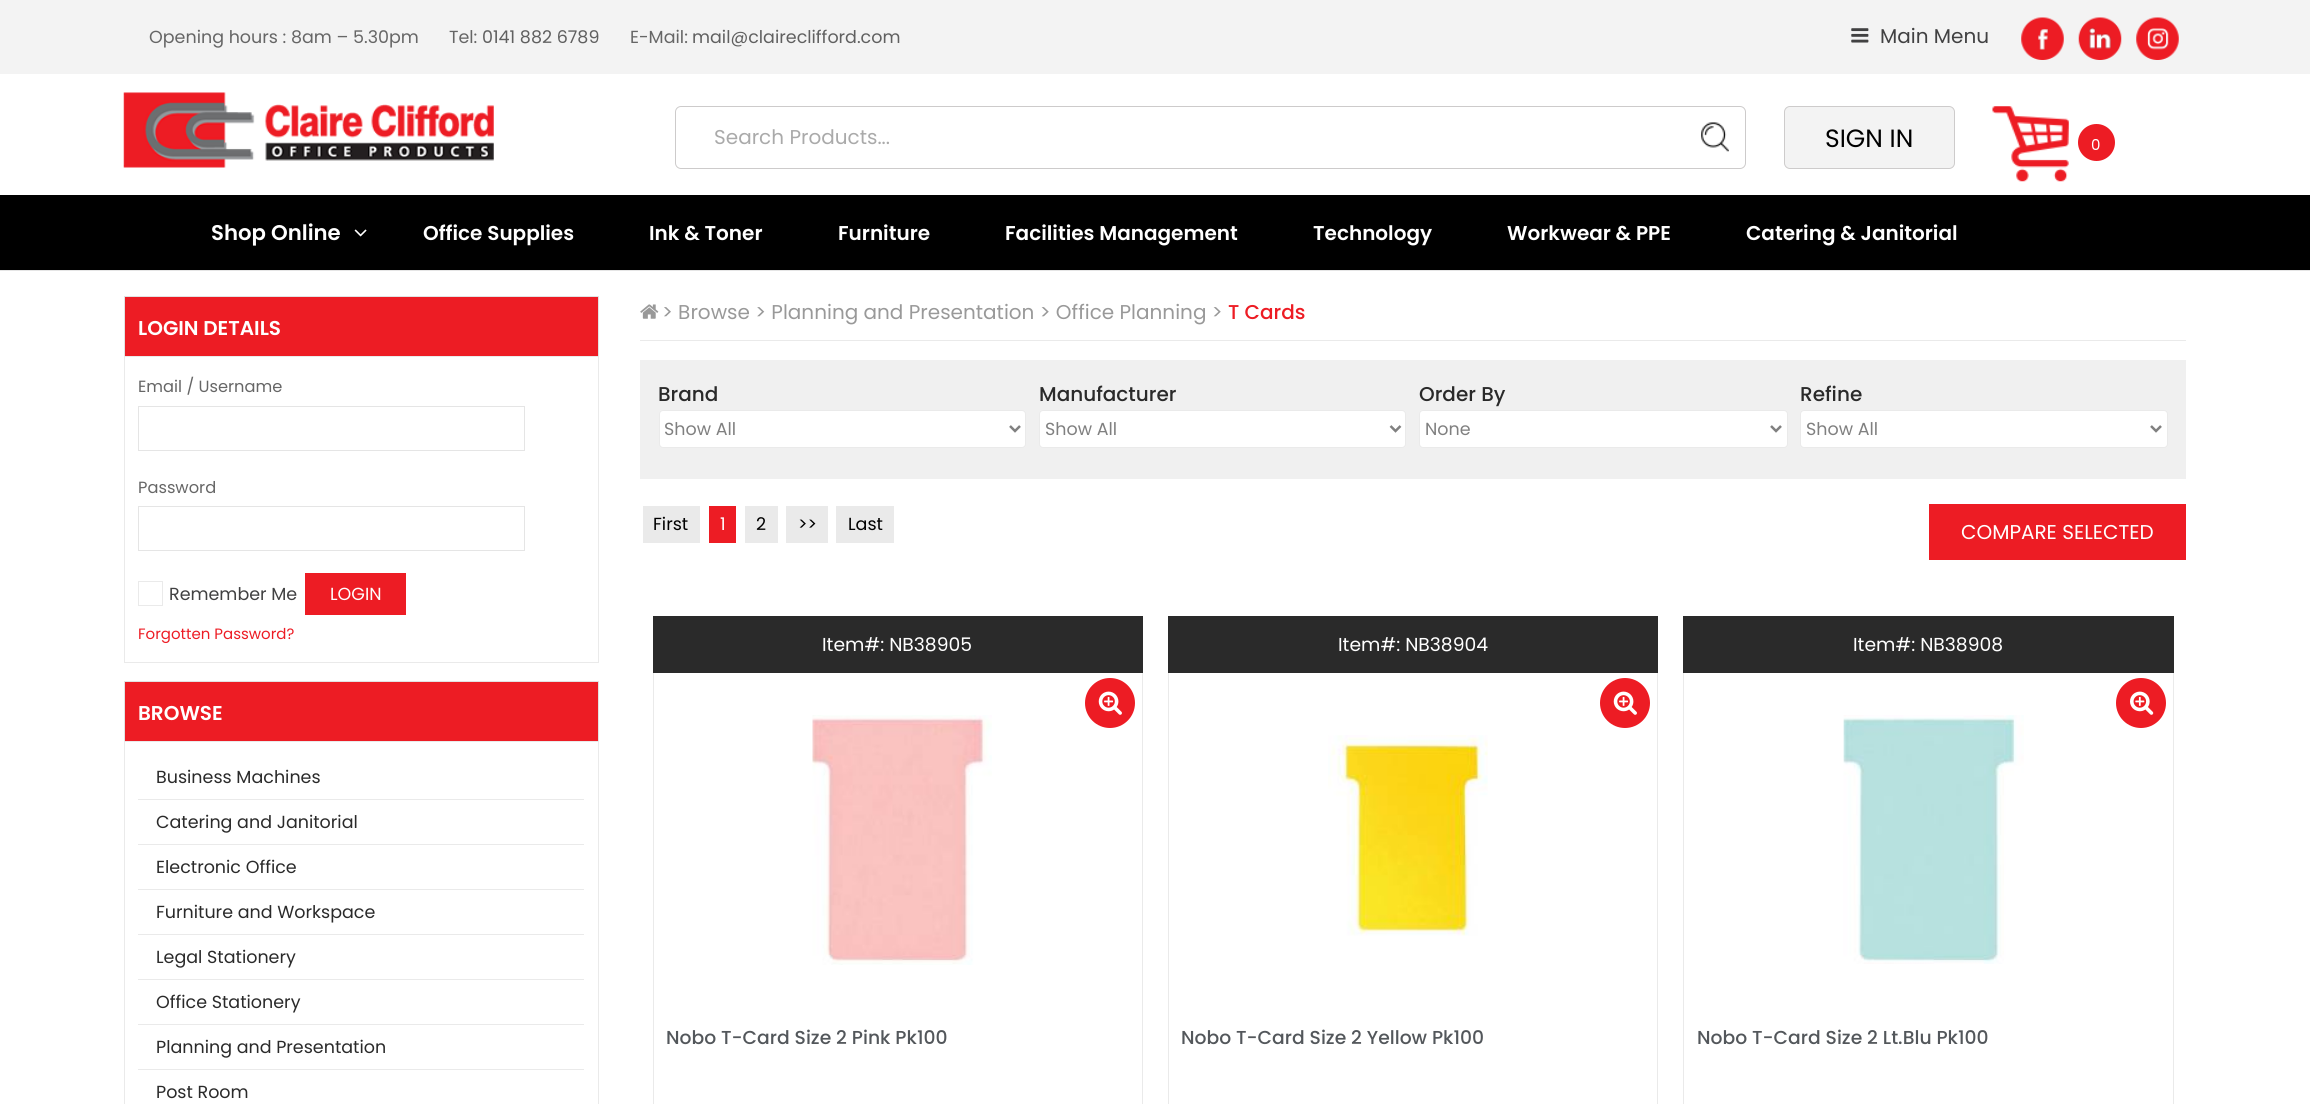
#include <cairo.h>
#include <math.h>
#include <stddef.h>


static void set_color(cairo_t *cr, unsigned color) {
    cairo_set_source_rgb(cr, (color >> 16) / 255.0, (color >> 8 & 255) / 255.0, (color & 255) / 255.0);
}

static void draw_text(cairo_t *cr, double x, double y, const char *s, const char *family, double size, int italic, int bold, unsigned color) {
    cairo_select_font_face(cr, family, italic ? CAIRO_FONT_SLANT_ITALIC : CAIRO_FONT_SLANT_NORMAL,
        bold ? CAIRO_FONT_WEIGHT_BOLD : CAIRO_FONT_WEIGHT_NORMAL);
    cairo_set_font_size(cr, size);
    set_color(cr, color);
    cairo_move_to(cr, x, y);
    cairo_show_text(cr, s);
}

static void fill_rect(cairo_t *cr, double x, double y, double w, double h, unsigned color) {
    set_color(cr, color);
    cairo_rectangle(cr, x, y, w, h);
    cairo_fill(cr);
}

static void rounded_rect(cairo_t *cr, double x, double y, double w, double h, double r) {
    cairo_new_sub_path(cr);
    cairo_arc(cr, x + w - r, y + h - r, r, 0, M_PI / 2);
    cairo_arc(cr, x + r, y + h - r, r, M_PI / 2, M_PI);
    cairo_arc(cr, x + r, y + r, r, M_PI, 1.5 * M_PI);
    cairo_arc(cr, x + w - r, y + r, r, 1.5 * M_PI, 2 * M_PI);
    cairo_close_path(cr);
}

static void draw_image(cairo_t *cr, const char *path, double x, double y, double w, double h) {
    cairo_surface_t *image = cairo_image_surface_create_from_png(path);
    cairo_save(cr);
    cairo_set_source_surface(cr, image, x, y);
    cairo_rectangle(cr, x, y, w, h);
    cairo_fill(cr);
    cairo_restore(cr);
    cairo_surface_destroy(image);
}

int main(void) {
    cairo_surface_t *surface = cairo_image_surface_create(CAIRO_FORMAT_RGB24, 2310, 1104);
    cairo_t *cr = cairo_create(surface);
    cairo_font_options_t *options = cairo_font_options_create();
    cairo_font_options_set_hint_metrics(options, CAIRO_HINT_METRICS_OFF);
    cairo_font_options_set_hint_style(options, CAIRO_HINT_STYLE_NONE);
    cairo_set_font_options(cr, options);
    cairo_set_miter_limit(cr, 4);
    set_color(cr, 0xFFFFFF);
    cairo_paint(cr);
    fill_rect(cr, 0, 0, 2310, 74, 0xF3F3F3);
    draw_text(cr, 149, 43, "Opening hours : 8am – 5.30pm", "Poppins", 17.5, 0, 0, 0x666666);
    draw_text(cr, 449, 43, "Tel:", "Poppins", 17.5, 0, 0, 0x666666);
    draw_text(cr, 482, 43, "0141 882 6789", "Poppins", 17.5, 0, 0, 0x606060);
    draw_text(cr, 630, 43, "E-Mail:", "Poppins", 17.5, 0, 0, 0x666666);
    draw_text(cr, 692, 43, "mail@claireclifford.com", "Poppins", 17.5, 0, 0, 0x606060);
    draw_image(cr, "assets/img1.png", 1851, 28, 18, 15);
    draw_text(cr, 1880, 43, "Main Menu", "Poppins", 20, 0, 0, 0x414142);
    draw_image(cr, "assets/img2.png", 2021, 17, 43, 43);
    draw_image(cr, "assets/img3.png", 2078, 17, 44, 43);
    draw_image(cr, "assets/img4.png", 2136, 17, 43, 43);
    draw_image(cr, "assets/img5.png", 123, 92, 371, 76);
    rounded_rect(cr, 675.5, 106.5, 1070, 62, 5.5);
    set_color(cr, 0xCDCBCB);
    cairo_set_line_width(cr, 1);
    cairo_stroke(cr);
    draw_text(cr, 714, 144, "Search Products...", "Poppins", 20, 0, 0, 0xAAAAAA);
    draw_image(cr, "assets/img6.png", 1701, 122, 28, 30);
    set_color(cr, 0xF3F3F3);
    rounded_rect(cr, 1784.5, 106.5, 170, 62, 5.5);
    cairo_fill_preserve(cr);
    set_color(cr, 0xCDCBCB);
    cairo_stroke(cr);
    draw_text(cr, 1825, 147, "SIGN IN", "Poppins", 25, 0, 0, 0x000000);
    draw_image(cr, "assets/img7.png", 1992, 106, 77, 76);
    set_color(cr, 0xED1C24);
    cairo_arc(cr, 2096.5, 142.5, 18.5, 0, 2 * M_PI);
    cairo_fill(cr);
    draw_text(cr, 2091, 150, "0", "Poppins", 15, 0, 0, 0xFFFFFF);
    fill_rect(cr, 0, 195, 2310, 75, 0x000000);
    draw_text(cr, 211, 240, "Shop Online", "Poppins SemiBold", 21.25, 0, 0, 0xFFFFFF);
    draw_image(cr, "assets/img8.png", 354, 229, 13, 8);
    draw_text(cr, 423, 240, "Office Supplies", "Poppins SemiBold", 20, 0, 0, 0xFFFFFF);
    draw_text(cr, 649, 240, "Ink & Toner", "Poppins SemiBold", 20, 0, 0, 0xFFFFFF);
    draw_text(cr, 838, 240, "Furniture", "Poppins SemiBold", 20, 0, 0, 0xFFFFFF);
    draw_text(cr, 1005, 240, "Facilities Management", "Poppins SemiBold", 20, 0, 0, 0xFFFFFF);
    draw_text(cr, 1313, 240, "Technology", "Poppins SemiBold", 20, 0, 0, 0xFFFFFF);
    draw_text(cr, 1507, 240, "Workwear & PPE", "Poppins SemiBold", 20, 0, 0, 0xFFFFFF);
    draw_text(cr, 1746, 240, "Catering & Janitorial", "Poppins SemiBold", 20, 0, 0, 0xFFFFFF);
    fill_rect(cr, 0, 270, 2310, 1, 0xE5E5E5);
    fill_rect(cr, 125, 297, 473, 59, 0xED1C24);
    fill_rect(cr, 124, 296, 475, 1, 0xE2E2E2);
    fill_rect(cr, 598, 296, 1, 60, 0xE2E2E2);
    fill_rect(cr, 124, 296, 1, 60, 0xE2E2E2);
    draw_text(cr, 138, 335, "LOGIN DETAILS", "Poppins SemiBold", 20, 0, 0, 0xFFFFFF);
    cairo_rectangle(cr, 124.5, 356.5, 474, 306);
    set_color(cr, 0xEAEAEA);
    cairo_stroke(cr);
    draw_text(cr, 138, 392, "Email / Username", "Poppins", 16.25, 0, 0, 0x666666);
    cairo_rectangle(cr, 138.5, 406.5, 386, 44);
    set_color(cr, 0xE5E5E5);
    cairo_stroke(cr);
    draw_text(cr, 138, 493, "Password", "Poppins", 16.25, 0, 0, 0x666666);
    cairo_rectangle(cr, 138.5, 506.5, 386, 44);
    set_color(cr, 0xE5E5E5);
    cairo_stroke(cr);
    cairo_rectangle(cr, 138.5, 581.5, 24, 24);
    set_color(cr, 0xEAEAEA);
    cairo_stroke(cr);
    draw_text(cr, 169, 600, "Remember Me", "Poppins", 17.5, 0, 0, 0x414142);
    fill_rect(cr, 305, 573, 101, 42, 0xED1C24);
    draw_text(cr, 330, 600, "LOGIN", "Poppins", 17.5, 0, 0, 0xFFFFFF);
    draw_text(cr, 138, 639, "Forgotten Password?", "Poppins", 15, 0, 0, 0xED1C24);
    fill_rect(cr, 125, 682, 473, 59, 0xED1C24);
    fill_rect(cr, 124, 681, 475, 1, 0xE2E2E2);
    fill_rect(cr, 598, 681, 1, 60, 0xE2E2E2);
    fill_rect(cr, 124, 681, 1, 60, 0xE2E2E2);
    draw_text(cr, 138, 720, "BROWSE", "Poppins SemiBold", 20, 0, 0, 0xFFFFFF);
    cairo_rectangle(cr, 124.5, 741.5, 474, 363);
    set_color(cr, 0xEAEAEA);
    cairo_stroke(cr);
    fill_rect(cr, 138, 799, 446, 1, 0xEAEAEA);
    draw_text(cr, 156, 783, "Business Machines", "Poppins", 17.5, 0, 0, 0x2A2A2A);
    fill_rect(cr, 138, 844, 446, 1, 0xEAEAEA);
    draw_text(cr, 156, 828, "Catering and Janitorial", "Poppins", 17.5, 0, 0, 0x2A2A2A);
    fill_rect(cr, 138, 889, 446, 1, 0xEAEAEA);
    draw_text(cr, 156, 873, "Electronic Office", "Poppins", 17.5, 0, 0, 0x2A2A2A);
    fill_rect(cr, 138, 934, 446, 1, 0xEAEAEA);
    draw_text(cr, 156, 918, "Furniture and Workspace", "Poppins", 17.5, 0, 0, 0x2A2A2A);
    fill_rect(cr, 138, 979, 446, 1, 0xEAEAEA);
    draw_text(cr, 156, 963, "Legal Stationery", "Poppins", 17.5, 0, 0, 0x2A2A2A);
    fill_rect(cr, 138, 1024, 446, 1, 0xEAEAEA);
    draw_text(cr, 156, 1008, "Office Stationery", "Poppins", 17.5, 0, 0, 0x2A2A2A);
    fill_rect(cr, 138, 1069, 446, 1, 0xEAEAEA);
    draw_text(cr, 156, 1053, "Planning and Presentation", "Poppins", 17.5, 0, 0, 0x2A2A2A);
    draw_text(cr, 156, 1098, "Post Room", "Poppins", 17.5, 0, 0, 0x2A2A2A);
    fill_rect(cr, 640, 340, 1546, 1, 0xEAEAEA);
    draw_image(cr, "assets/img9.png", 640, 304, 19, 15);
    draw_text(cr, 662, 319, "> Browse > Planning and Presentation > Office Planning >", "Poppins", 20, 0, 0, 0x999999);
    draw_text(cr, 1228, 319, "T Cards", "Poppins Medium", 20, 0, 0, 0xED1C24);
    fill_rect(cr, 640, 360, 1546, 119, 0xF0F0F0);
    draw_text(cr, 658, 401, "Brand", "Poppins Medium", 20, 0, 0, 0x2A2A2A);
    set_color(cr, 0xFFFFFF);
    rounded_rect(cr, 659.5, 410.5, 366, 37, 3.5);
    cairo_fill_preserve(cr);
    set_color(cr, 0xEAEAEA);
    cairo_stroke(cr);
    cairo_new_path(cr);
    cairo_move_to(cr, 1010, 426);
    cairo_line_to(cr, 1015, 431);
    cairo_line_to(cr, 1020, 426);
    set_color(cr, 0x808080);
    cairo_set_line_width(cr, 2.5);
    cairo_stroke(cr);
    draw_text(cr, 664, 435, "Show All", "Poppins", 17.5, 0, 0, 0x808080);
    draw_text(cr, 1039, 401, "Manufacturer", "Poppins Medium", 20, 0, 0, 0x2A2A2A);
    set_color(cr, 0xFFFFFF);
    rounded_rect(cr, 1039.5, 410.5, 366, 37, 3.5);
    cairo_fill_preserve(cr);
    set_color(cr, 0xEAEAEA);
    cairo_set_line_width(cr, 1);
    cairo_stroke(cr);
    cairo_new_path(cr);
    cairo_move_to(cr, 1390.5, 426);
    cairo_line_to(cr, 1395.5, 431);
    cairo_line_to(cr, 1400.5, 426);
    set_color(cr, 0x808080);
    cairo_set_line_width(cr, 2.5);
    cairo_stroke(cr);
    draw_text(cr, 1045, 435, "Show All", "Poppins", 17.5, 0, 0, 0x808080);
    draw_text(cr, 1419, 401, "Order By", "Poppins Medium", 20, 0, 0, 0x2A2A2A);
    set_color(cr, 0xFFFFFF);
    rounded_rect(cr, 1419.5, 410.5, 368, 37, 3.5);
    cairo_fill_preserve(cr);
    set_color(cr, 0xEAEAEA);
    cairo_set_line_width(cr, 1);
    cairo_stroke(cr);
    cairo_new_path(cr);
    cairo_move_to(cr, 1771, 426);
    cairo_line_to(cr, 1776, 431);
    cairo_line_to(cr, 1781, 426);
    set_color(cr, 0x808080);
    cairo_set_line_width(cr, 2.5);
    cairo_stroke(cr);
    draw_text(cr, 1425, 435, "None", "Poppins", 17.5, 0, 0, 0x808080);
    draw_text(cr, 1800, 401, "Refine", "Poppins Medium", 20, 0, 0, 0x2A2A2A);
    set_color(cr, 0xFFFFFF);
    rounded_rect(cr, 1800.5, 410.5, 367, 37, 3.5);
    cairo_fill_preserve(cr);
    set_color(cr, 0xEAEAEA);
    cairo_set_line_width(cr, 1);
    cairo_stroke(cr);
    cairo_new_path(cr);
    cairo_move_to(cr, 2151, 426);
    cairo_line_to(cr, 2156, 431);
    cairo_line_to(cr, 2161, 426);
    set_color(cr, 0x808080);
    cairo_set_line_width(cr, 2.5);
    cairo_stroke(cr);
    draw_text(cr, 1806, 435, "Show All", "Poppins", 17.5, 0, 0, 0x808080);
    fill_rect(cr, 643, 506, 57, 37, 0xEAEAEA);
    draw_text(cr, 653, 530, "First", "Poppins", 17.5, 0, 0, 0x000000);
    fill_rect(cr, 709, 506, 27, 37, 0xED1C24);
    draw_text(cr, 720, 530, "1", "Poppins", 17.5, 0, 0, 0xFFFFFF);
    fill_rect(cr, 745, 506, 33, 37, 0xEAEAEA);
    draw_text(cr, 756, 530, "2", "Poppins", 17.5, 0, 0, 0x000000);
    fill_rect(cr, 786, 506, 42, 37, 0xEAEAEA);
    draw_text(cr, 798, 530, ">>", "Poppins", 17.5, 0, 0, 0x000000);
    fill_rect(cr, 836, 506, 58, 37, 0xEAEAEA);
    draw_text(cr, 848, 530, "Last", "Poppins", 17.5, 0, 0, 0x000000);
    fill_rect(cr, 1929, 504, 257, 56, 0xED1C24);
    draw_text(cr, 1961, 539, "COMPARE SELECTED", "Poppins", 20, 0, 0, 0xFFFFFF);
    cairo_rectangle(cr, 653.5, 616.5, 489, 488);
    set_color(cr, 0xEAEAEA);
    cairo_set_line_width(cr, 1);
    cairo_stroke(cr);
    fill_rect(cr, 653, 616, 490, 57, 0x2A2A2A);
    draw_text(cr, 822, 651, "Item#: NB38905", "Poppins", 18.75, 0, 0, 0xFFFFFF);
    set_color(cr, 0xED1C24);
    cairo_new_path(cr);
    cairo_arc(cr, 1110, 703, 25, 0, 2 * M_PI);
    cairo_fill(cr);
    draw_image(cr, "assets/img10.png", 1098, 691, 24, 24);
    draw_image(cr, "assets/img11.png", 812, 715, 180, 250);
    draw_text(cr, 666, 1044, "Nobo T-Card Size 2 Pink Pk100", "Poppins Medium", 18.75, 0, 0, 0x53575B);
    cairo_rectangle(cr, 1168.5, 616.5, 489, 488);
    set_color(cr, 0xEAEAEA);
    cairo_stroke(cr);
    fill_rect(cr, 1168, 616, 490, 57, 0x2A2A2A);
    draw_text(cr, 1338, 651, "Item#: NB38904", "Poppins", 18.75, 0, 0, 0xFFFFFF);
    set_color(cr, 0xED1C24);
    cairo_new_path(cr);
    cairo_arc(cr, 1625, 703, 25, 0, 2 * M_PI);
    cairo_fill(cr);
    draw_image(cr, "assets/img10.png", 1613, 691, 24, 24);
    draw_image(cr, "assets/img12.png", 1328, 735, 160, 201);
    draw_text(cr, 1181, 1044, "Nobo T-Card Size 2 Yellow Pk100", "Poppins Medium", 18.75, 0, 0, 0x53575B);
    cairo_rectangle(cr, 1683.5, 616.5, 490, 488);
    set_color(cr, 0xEAEAEA);
    cairo_stroke(cr);
    fill_rect(cr, 1683, 616, 491, 57, 0x2A2A2A);
    draw_text(cr, 1853, 651, "Item#: NB38908", "Poppins", 18.75, 0, 0, 0xFFFFFF);
    set_color(cr, 0xED1C24);
    cairo_new_path(cr);
    cairo_arc(cr, 2141, 703, 25, 0, 2 * M_PI);
    cairo_fill(cr);
    draw_image(cr, "assets/img13.png", 2130, 691, 24, 24);
    draw_image(cr, "assets/img14.png", 1843, 715, 181, 249);
    draw_text(cr, 1697, 1044, "Nobo T-Card Size 2 Lt.Blu Pk100", "Poppins Medium", 18.75, 0, 0, 0x53575B);
    cairo_surface_write_to_png(surface, "output.png");
    cairo_font_options_destroy(options);
    cairo_destroy(cr);
    cairo_surface_destroy(surface);
    return 0;
}
